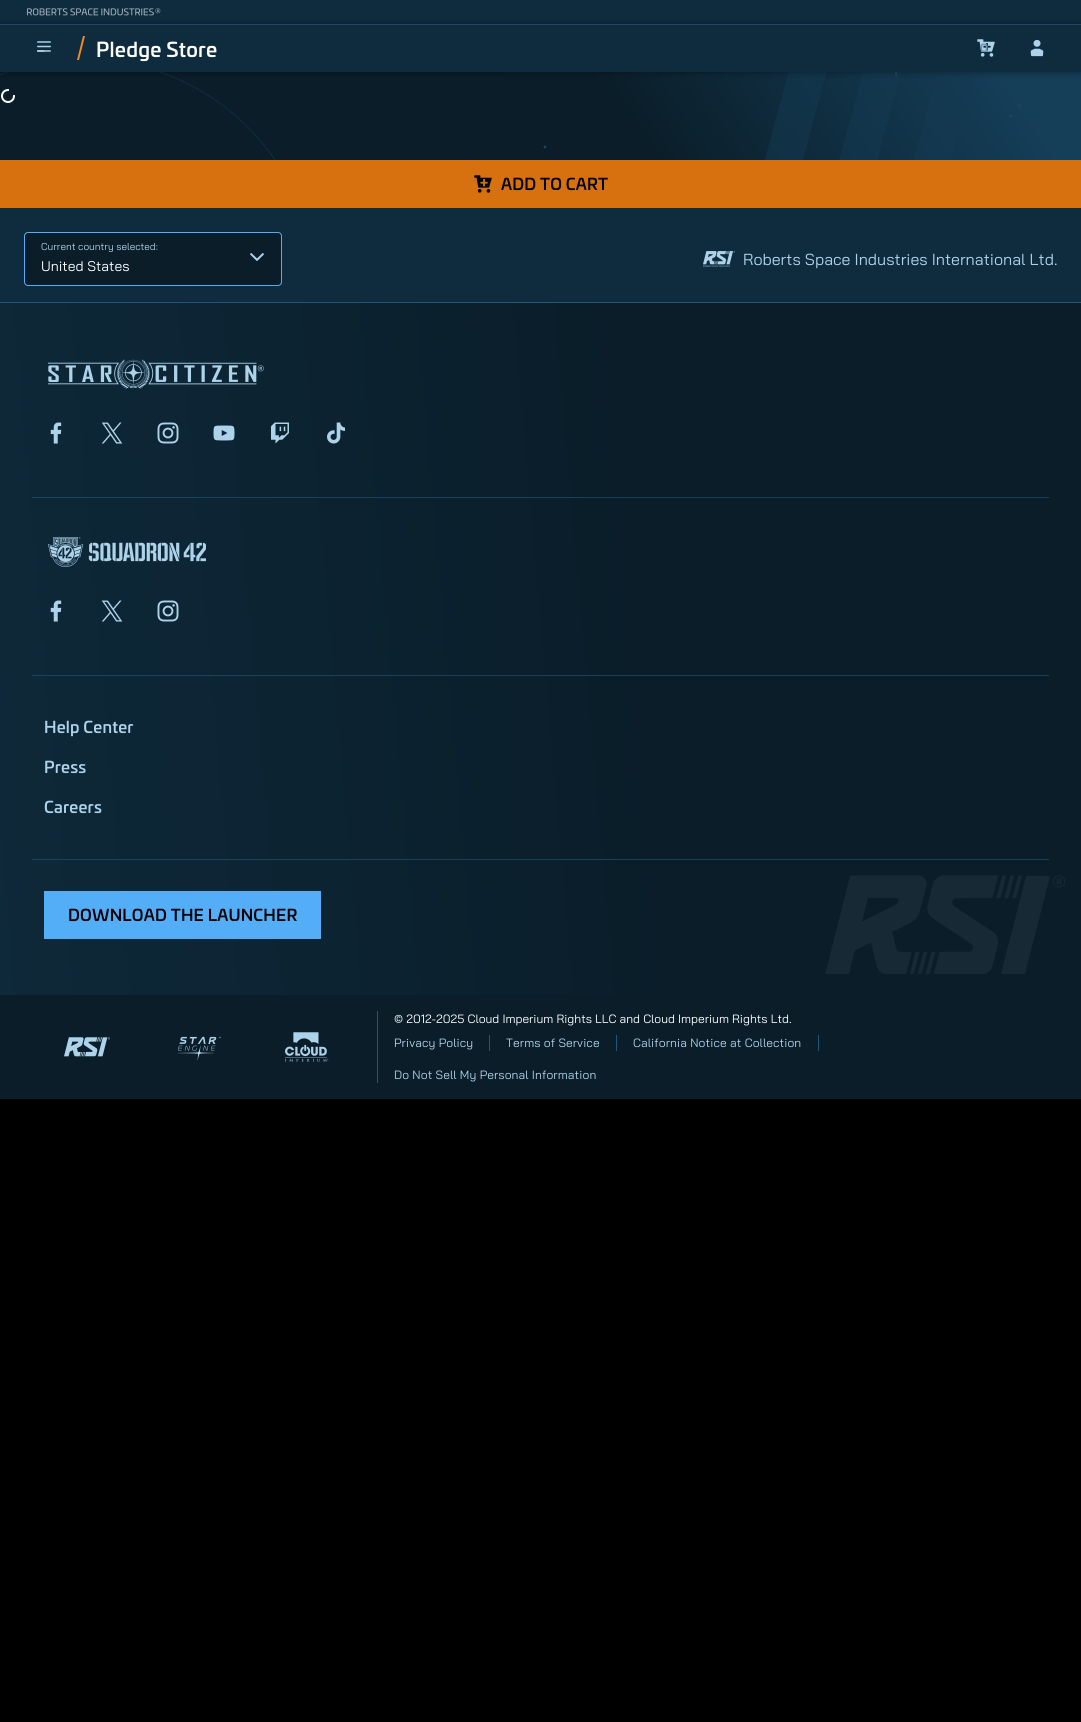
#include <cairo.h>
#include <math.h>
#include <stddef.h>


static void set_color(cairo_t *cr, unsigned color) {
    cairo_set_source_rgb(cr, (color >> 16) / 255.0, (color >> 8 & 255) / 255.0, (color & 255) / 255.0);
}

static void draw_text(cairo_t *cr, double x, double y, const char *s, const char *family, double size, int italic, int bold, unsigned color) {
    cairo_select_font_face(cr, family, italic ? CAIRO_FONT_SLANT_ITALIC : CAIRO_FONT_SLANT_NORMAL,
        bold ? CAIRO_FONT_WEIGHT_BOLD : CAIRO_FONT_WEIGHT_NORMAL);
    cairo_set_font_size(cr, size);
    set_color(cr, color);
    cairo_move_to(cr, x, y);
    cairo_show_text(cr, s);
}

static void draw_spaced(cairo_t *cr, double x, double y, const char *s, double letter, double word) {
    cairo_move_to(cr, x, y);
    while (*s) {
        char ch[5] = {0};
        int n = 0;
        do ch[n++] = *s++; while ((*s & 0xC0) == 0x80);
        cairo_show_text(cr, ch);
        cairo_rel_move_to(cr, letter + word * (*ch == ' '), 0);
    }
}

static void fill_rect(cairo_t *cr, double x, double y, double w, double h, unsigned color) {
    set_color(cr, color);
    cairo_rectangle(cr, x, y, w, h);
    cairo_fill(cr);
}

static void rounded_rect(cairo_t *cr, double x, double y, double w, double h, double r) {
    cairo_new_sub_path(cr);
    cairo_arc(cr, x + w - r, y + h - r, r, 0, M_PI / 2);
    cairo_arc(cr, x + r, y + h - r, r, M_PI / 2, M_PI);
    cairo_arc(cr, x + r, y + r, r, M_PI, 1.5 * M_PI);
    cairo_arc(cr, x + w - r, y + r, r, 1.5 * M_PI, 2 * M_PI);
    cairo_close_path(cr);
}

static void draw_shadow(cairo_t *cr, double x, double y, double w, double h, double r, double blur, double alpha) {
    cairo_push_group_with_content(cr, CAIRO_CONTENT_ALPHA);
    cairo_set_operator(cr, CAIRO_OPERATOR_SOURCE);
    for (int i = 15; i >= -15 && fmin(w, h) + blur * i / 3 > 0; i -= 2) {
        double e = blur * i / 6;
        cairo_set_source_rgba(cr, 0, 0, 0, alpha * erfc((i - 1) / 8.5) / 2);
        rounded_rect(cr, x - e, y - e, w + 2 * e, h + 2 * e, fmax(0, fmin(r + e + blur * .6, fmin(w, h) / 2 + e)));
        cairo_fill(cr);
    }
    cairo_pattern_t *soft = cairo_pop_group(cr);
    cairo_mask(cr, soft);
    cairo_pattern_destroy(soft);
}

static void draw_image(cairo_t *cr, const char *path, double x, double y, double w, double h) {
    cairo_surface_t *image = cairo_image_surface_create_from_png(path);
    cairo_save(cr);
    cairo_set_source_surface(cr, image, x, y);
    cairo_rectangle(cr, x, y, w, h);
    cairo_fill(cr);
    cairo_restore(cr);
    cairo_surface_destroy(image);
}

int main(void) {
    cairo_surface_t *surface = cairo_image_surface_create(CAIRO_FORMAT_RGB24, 1081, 1722);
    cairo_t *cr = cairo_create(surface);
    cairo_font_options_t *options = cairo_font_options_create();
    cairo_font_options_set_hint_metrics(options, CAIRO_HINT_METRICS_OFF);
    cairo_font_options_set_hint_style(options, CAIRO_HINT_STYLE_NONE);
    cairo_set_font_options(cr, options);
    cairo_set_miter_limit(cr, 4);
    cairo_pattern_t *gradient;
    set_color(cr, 0x000000);
    cairo_paint(cr);
    fill_rect(cr, 0, 0, 1081, 24, 0x0F2C3E);
    draw_image(cr, "assets/img1.png", 27, 8, 134, 8);
    gradient = cairo_pattern_create_linear(944, -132, 137, 412);
    cairo_pattern_add_color_stop_rgba(gradient, 0.07, 0.082, 0.243, 0.345, 1);
    cairo_pattern_add_color_stop_rgba(gradient, 0.42, 0.039, 0.114, 0.157, 1);
    cairo_pattern_add_color_stop_rgba(gradient, 0.59, 0.039, 0.114, 0.161, 1);
    cairo_pattern_add_color_stop_rgba(gradient, 0.79, 0.039, 0.114, 0.161, 1);
    cairo_set_source(cr, gradient);
    cairo_pattern_destroy(gradient);
    cairo_rectangle(cr, 0, 72, 1081, 88);
    cairo_fill(cr);
    draw_image(cr, "assets/img5.png", 0, 72, 1022, 88);
    set_color(cr, 0x000000);
    draw_shadow(cr, 0, 24, 1081, 48, 0, 4, 0.4);
    fill_rect(cr, 0, 25, 1081, 47, 0x0F2C3E);
    fill_rect(cr, 0, 24, 1081, 1, 0x194967);
    draw_image(cr, "assets/img2.png", 37, 41, 14, 11);
    set_color(cr, 0xF08928);
    cairo_new_path(cr);
    cairo_move_to(cr, 83, 36);
    cairo_line_to(cr, 85, 36);
    cairo_line_to(cr, 79, 60);
    cairo_line_to(cr, 77, 60);
    cairo_close_path(cr);
    cairo_fill(cr);
    cairo_select_font_face(cr, "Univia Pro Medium", CAIRO_FONT_SLANT_NORMAL, CAIRO_FONT_WEIGHT_NORMAL);
    cairo_set_font_size(cr, 20);
    set_color(cr, 0xFFFFFF);
    draw_spaced(cr, 96, 57, "Pledge Store", 0.25, 0);
    draw_image(cr, "assets/img3.png", 977, 39, 18, 18);
    draw_text(cr, 980, 52, "0", "Bai Jamjuree", 12, 0, 1, 0x7295AB);
    draw_image(cr, "assets/img4.png", 1030, 39, 14, 18);
    draw_image(cr, "assets/img6.png", 1, 89, 14, 14);
    fill_rect(cr, 0, 160, 1081, 48, 0xD7700F);
    draw_image(cr, "assets/img7.png", 474, 175, 18, 18);
    cairo_select_font_face(cr, "Univia Pro Medium", CAIRO_FONT_SLANT_NORMAL, CAIRO_FONT_WEIGHT_NORMAL);
    cairo_set_font_size(cr, 16);
    set_color(cr, 0x000000);
    draw_spaced(cr, 501, 190, "ADD TO CART", 0.2, 0);
    fill_rect(cr, 0, 208, 1081, 94, 0x0F2C3E);
    set_color(cr, 0x0A1D29);
    rounded_rect(cr, 24.5, 232.5, 257, 53, 3.5);
    cairo_fill_preserve(cr);
    set_color(cr, 0x54ADF7);
    cairo_set_line_width(cr, 1);
    cairo_stroke(cr);
    draw_text(cr, 41, 250, "Current country selected:", "Bai Jamjuree", 10, 0, 0, 0xADD3EB);
    draw_image(cr, "assets/img8.png", 250, 253, 14, 8);
    draw_text(cr, 41, 271, "United States", "Bai Jamjuree", 14, 0, 0, 0xFFFFFF);
    draw_image(cr, "assets/img9.png", 703, 251, 32, 16);
    draw_text(cr, 743, 265, "Roberts Space Industries International Ltd.", "Bai Jamjuree", 16, 0, 0, 0xADD3EB);
    gradient = cairo_pattern_create_linear(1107, 599, -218, 715);
    cairo_pattern_add_color_stop_rgba(gradient, 0.35, 0.039, 0.114, 0.161, 1);
    cairo_pattern_add_color_stop_rgba(gradient, 1, 0.059, 0.173, 0.243, 1);
    cairo_set_source(cr, gradient);
    cairo_pattern_destroy(gradient);
    cairo_rectangle(cr, 0, 303, 1081, 692);
    cairo_fill(cr);
    gradient = cairo_pattern_create_linear(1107, 599, -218, 715);
    cairo_pattern_add_color_stop_rgba(gradient, 0.35, 0.086, 0.251, 0.353, 1);
    cairo_pattern_add_color_stop_rgba(gradient, 1, 0.094, 0.275, 0.388, 1);
    cairo_set_source(cr, gradient);
    cairo_pattern_destroy(gradient);
    cairo_rectangle(cr, 32, 859, 1017, 1);
    cairo_fill(cr);
    cairo_rectangle(cr, 32, 675, 1017, 1);
    cairo_fill(cr);
    cairo_rectangle(cr, 32, 497, 1017, 1);
    cairo_fill(cr);
    fill_rect(cr, 0, 302, 1081, 1, 0x1E577B);
    draw_image(cr, "assets/img10.png", 48, 359, 216, 30);
    draw_image(cr, "assets/img11.png", 50, 422, 12, 22);
    draw_image(cr, "assets/img12.png", 101, 422, 22, 22);
    draw_image(cr, "assets/img13.png", 157, 422, 22, 22);
    draw_image(cr, "assets/img14.png", 213, 425, 22, 16);
    draw_image(cr, "assets/img15.png", 271, 422, 18, 22);
    draw_image(cr, "assets/img16.png", 327, 422, 18, 22);
    draw_image(cr, "assets/img17.png", 48, 537, 158, 30);
    draw_image(cr, "assets/img11.png", 50, 600, 12, 22);
    draw_image(cr, "assets/img18.png", 101, 600, 22, 22);
    draw_image(cr, "assets/img19.png", 157, 600, 22, 22);
    cairo_select_font_face(cr, "Univia Pro Medium", CAIRO_FONT_SLANT_NORMAL, CAIRO_FONT_WEIGHT_NORMAL);
    set_color(cr, 0xADD3EB);
    draw_spaced(cr, 44, 733, "Help Center", 0.2, 0);
    draw_spaced(cr, 44, 773, "Press", 0.2, 0);
    draw_spaced(cr, 44, 813, "Careers", 0.2, 0);
    fill_rect(cr, 44, 891, 277, 48, 0x54ADF7);
    set_color(cr, 0x000000);
    draw_spaced(cr, 68, 921, "DOWNLOAD THE LAUNCHER", 0.2, 0);
    draw_image(cr, "assets/img20.png", 825, 875, 240, 99);
    fill_rect(cr, 0, 995, 1081, 104, 0x0A1D29);
    draw_image(cr, "assets/img21.png", 64, 1037, 46, 20);
    draw_image(cr, "assets/img22.png", 177, 1036, 44, 25);
    draw_image(cr, "assets/img23.png", 285, 1032, 44, 30);
    fill_rect(cr, 377, 1011, 1, 72, 0x1E577B);
    draw_text(cr, 394, 1023, "© 2012-2025 Cloud Imperium Rights LLC and Cloud Imperium Rights Ltd.", "Bai Jamjuree", 12, 0, 0, 0xFFFFFF);
    set_color(cr, 0xADD3EB);
    draw_spaced(cr, 394, 1047, "Privacy Policy", 0.1, 0);
    fill_rect(cr, 489, 1035, 1, 16, 0x1E577B);
    set_color(cr, 0xADD3EB);
    draw_spaced(cr, 506, 1047, "Terms of Service", 0.1, 0);
    fill_rect(cr, 616, 1035, 1, 16, 0x1E577B);
    set_color(cr, 0xADD3EB);
    draw_spaced(cr, 633, 1047, "California Notice at Collection", 0.1, 0);
    fill_rect(cr, 818, 1035, 1, 16, 0x1E577B);
    set_color(cr, 0xADD3EB);
    draw_spaced(cr, 394, 1079, "Do Not Sell My Personal Information", 0.1, 0);
    cairo_surface_write_to_png(surface, "output.png");
    cairo_font_options_destroy(options);
    cairo_destroy(cr);
    cairo_surface_destroy(surface);
    return 0;
}
